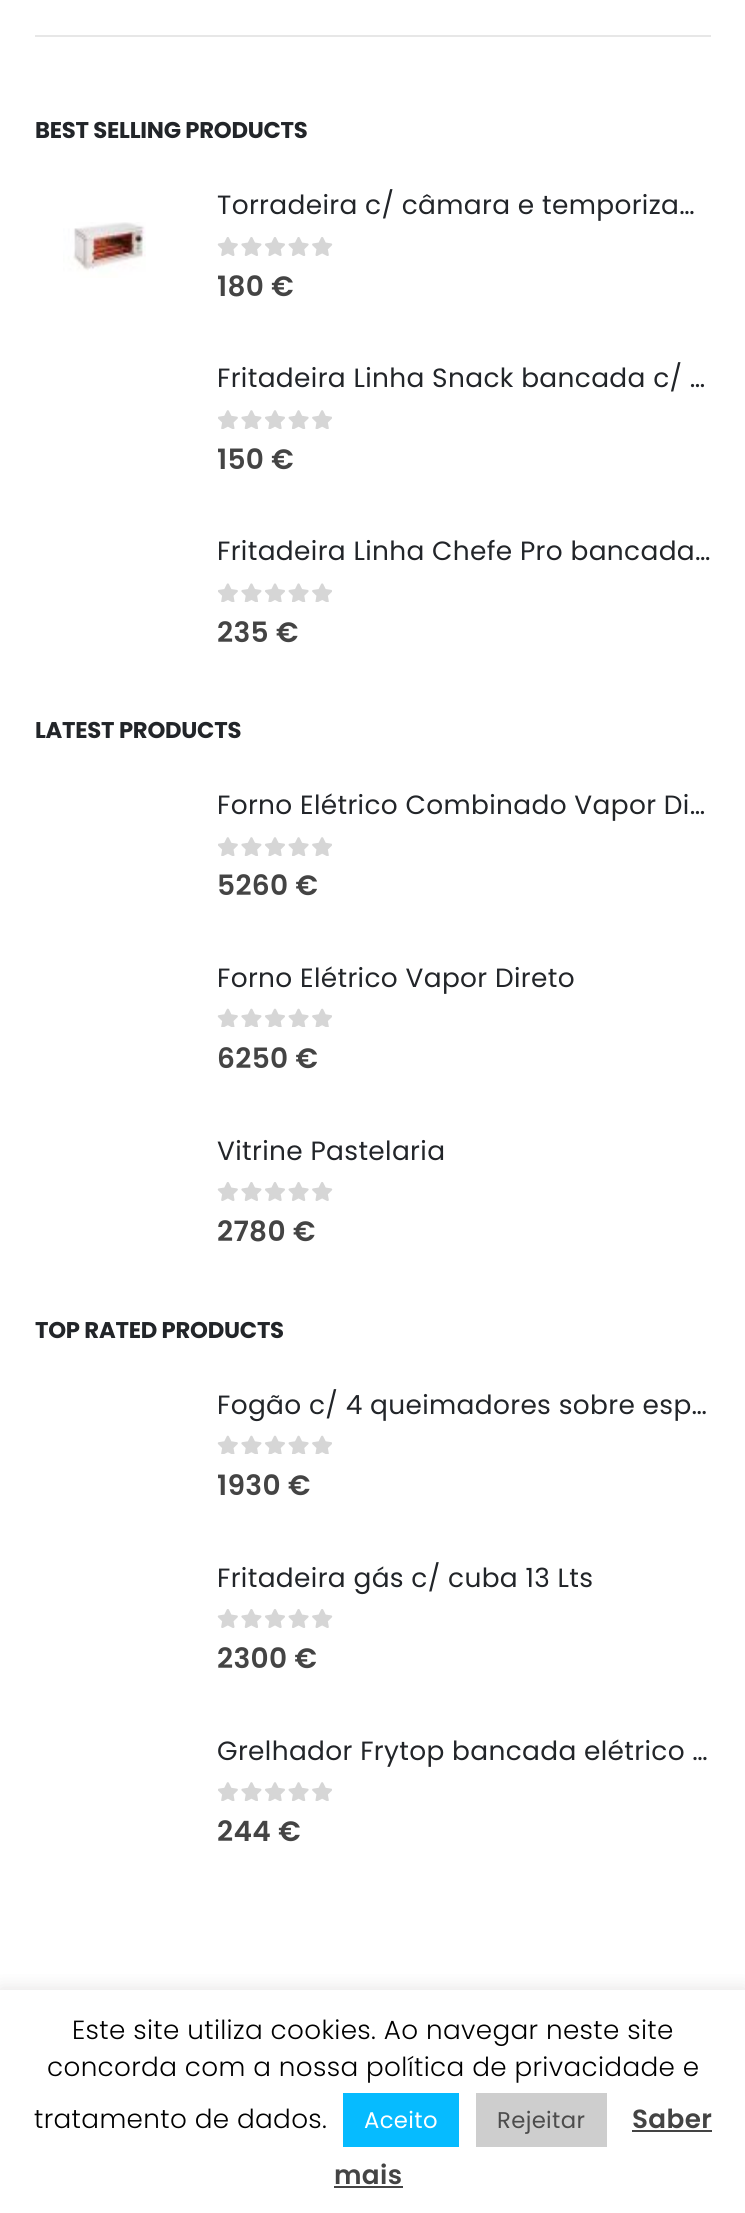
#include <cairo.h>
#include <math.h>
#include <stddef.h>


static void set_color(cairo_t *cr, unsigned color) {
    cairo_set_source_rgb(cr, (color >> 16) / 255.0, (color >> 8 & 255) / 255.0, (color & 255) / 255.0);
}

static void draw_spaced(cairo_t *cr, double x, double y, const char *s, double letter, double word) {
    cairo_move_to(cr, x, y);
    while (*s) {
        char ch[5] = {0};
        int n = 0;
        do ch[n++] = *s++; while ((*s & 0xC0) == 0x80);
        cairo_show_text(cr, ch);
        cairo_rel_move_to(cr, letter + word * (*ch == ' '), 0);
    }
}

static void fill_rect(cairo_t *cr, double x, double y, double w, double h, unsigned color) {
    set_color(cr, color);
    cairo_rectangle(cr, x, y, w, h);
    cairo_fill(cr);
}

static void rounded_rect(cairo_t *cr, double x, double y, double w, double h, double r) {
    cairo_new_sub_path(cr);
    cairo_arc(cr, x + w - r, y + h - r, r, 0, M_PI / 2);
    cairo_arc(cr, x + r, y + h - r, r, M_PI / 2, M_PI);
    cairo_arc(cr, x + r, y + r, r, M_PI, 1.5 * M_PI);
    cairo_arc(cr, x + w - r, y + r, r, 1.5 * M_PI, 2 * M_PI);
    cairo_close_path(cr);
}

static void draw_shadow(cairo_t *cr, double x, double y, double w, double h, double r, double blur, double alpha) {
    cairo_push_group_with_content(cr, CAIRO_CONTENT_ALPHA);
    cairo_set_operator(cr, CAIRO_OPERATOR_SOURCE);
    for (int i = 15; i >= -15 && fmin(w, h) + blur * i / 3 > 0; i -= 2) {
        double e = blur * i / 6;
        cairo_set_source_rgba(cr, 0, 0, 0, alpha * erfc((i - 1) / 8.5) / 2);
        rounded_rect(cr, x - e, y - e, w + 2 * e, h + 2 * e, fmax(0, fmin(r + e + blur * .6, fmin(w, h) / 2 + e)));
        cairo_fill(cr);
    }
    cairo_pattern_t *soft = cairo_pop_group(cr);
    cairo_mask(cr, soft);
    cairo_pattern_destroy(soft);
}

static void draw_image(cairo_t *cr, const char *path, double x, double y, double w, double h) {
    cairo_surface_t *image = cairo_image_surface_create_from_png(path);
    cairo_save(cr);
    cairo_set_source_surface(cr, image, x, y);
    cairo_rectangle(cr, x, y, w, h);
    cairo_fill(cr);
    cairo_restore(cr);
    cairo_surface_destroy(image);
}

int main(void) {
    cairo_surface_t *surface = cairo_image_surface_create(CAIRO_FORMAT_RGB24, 745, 2213);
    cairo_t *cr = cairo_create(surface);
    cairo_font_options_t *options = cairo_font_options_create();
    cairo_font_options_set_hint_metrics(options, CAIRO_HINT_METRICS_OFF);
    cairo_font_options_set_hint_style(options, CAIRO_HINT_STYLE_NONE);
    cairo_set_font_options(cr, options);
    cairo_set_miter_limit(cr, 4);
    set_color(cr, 0xFFFFFF);
    cairo_paint(cr);
    fill_rect(cr, 35, 35, 676, 2, 0xE7E7E7);
    cairo_select_font_face(cr, "Poppins", CAIRO_FONT_SLANT_NORMAL, CAIRO_FONT_WEIGHT_BOLD);
    cairo_set_font_size(cr, 22.75);
    set_color(cr, 0x222529);
    draw_spaced(cr, 35, 138, "BEST SELLING PRODUCTS", -0.25, 0);
    draw_image(cr, "assets/img1.png", 63, 222, 83, 56);
    cairo_select_font_face(cr, "Poppins", CAIRO_FONT_SLANT_NORMAL, CAIRO_FONT_WEIGHT_NORMAL);
    cairo_set_font_size(cr, 26.4);
    draw_spaced(cr, 217, 214, "Torradeira c/ câmara e temporiza…", 0.35, 0);
    draw_image(cr, "assets/img2.png", 217, 237, 116, 19);
    cairo_select_font_face(cr, "Poppins SemiBold", CAIRO_FONT_SLANT_NORMAL, CAIRO_FONT_WEIGHT_NORMAL);
    cairo_set_font_size(cr, 28);
    set_color(cr, 0x444444);
    draw_spaced(cr, 217, 296, "180 €", 0.35, 0);
    cairo_select_font_face(cr, "Poppins", CAIRO_FONT_SLANT_NORMAL, CAIRO_FONT_WEIGHT_NORMAL);
    cairo_set_font_size(cr, 26.4);
    set_color(cr, 0x222529);
    draw_spaced(cr, 217, 387, "Fritadeira Linha Snack bancada c/ …", 0.35, 0);
    draw_image(cr, "assets/img3.png", 218, 410, 114, 19);
    cairo_select_font_face(cr, "Poppins SemiBold", CAIRO_FONT_SLANT_NORMAL, CAIRO_FONT_WEIGHT_NORMAL);
    cairo_set_font_size(cr, 28);
    set_color(cr, 0x444444);
    draw_spaced(cr, 217, 469, "150 €", 0.35, 0);
    cairo_select_font_face(cr, "Poppins", CAIRO_FONT_SLANT_NORMAL, CAIRO_FONT_WEIGHT_NORMAL);
    cairo_set_font_size(cr, 26.4);
    set_color(cr, 0x222529);
    draw_spaced(cr, 217, 560, "Fritadeira Linha Chefe Pro bancada…", 0.35, 0);
    draw_image(cr, "assets/img4.png", 218, 583, 114, 19);
    cairo_select_font_face(cr, "Poppins SemiBold", CAIRO_FONT_SLANT_NORMAL, CAIRO_FONT_WEIGHT_NORMAL);
    cairo_set_font_size(cr, 28);
    set_color(cr, 0x444444);
    draw_spaced(cr, 217, 642, "235 €", 0.35, 0);
    cairo_select_font_face(cr, "Poppins", CAIRO_FONT_SLANT_NORMAL, CAIRO_FONT_WEIGHT_BOLD);
    cairo_set_font_size(cr, 22.75);
    set_color(cr, 0x222529);
    draw_spaced(cr, 35, 738, "LATEST PRODUCTS", -0.25, 0);
    cairo_select_font_face(cr, "Poppins", CAIRO_FONT_SLANT_NORMAL, CAIRO_FONT_WEIGHT_NORMAL);
    cairo_set_font_size(cr, 26.4);
    draw_spaced(cr, 217, 814, "Forno Elétrico Combinado Vapor Di…", 0.35, 0);
    draw_image(cr, "assets/img3.png", 218, 837, 114, 19);
    cairo_select_font_face(cr, "Poppins SemiBold", CAIRO_FONT_SLANT_NORMAL, CAIRO_FONT_WEIGHT_NORMAL);
    cairo_set_font_size(cr, 28);
    set_color(cr, 0x444444);
    draw_spaced(cr, 217, 895, "5260 €", 0.35, 0);
    cairo_select_font_face(cr, "Poppins", CAIRO_FONT_SLANT_NORMAL, CAIRO_FONT_WEIGHT_NORMAL);
    cairo_set_font_size(cr, 26.4);
    set_color(cr, 0x222529);
    draw_spaced(cr, 217, 987, "Forno Elétrico Vapor Direto", 0.35, 0);
    draw_image(cr, "assets/img5.png", 217, 1008, 115, 19);
    cairo_select_font_face(cr, "Poppins SemiBold", CAIRO_FONT_SLANT_NORMAL, CAIRO_FONT_WEIGHT_NORMAL);
    cairo_set_font_size(cr, 28);
    set_color(cr, 0x444444);
    draw_spaced(cr, 217, 1068, "6250 €", 0.35, 0);
    cairo_select_font_face(cr, "Poppins", CAIRO_FONT_SLANT_NORMAL, CAIRO_FONT_WEIGHT_NORMAL);
    cairo_set_font_size(cr, 26.4);
    set_color(cr, 0x222529);
    draw_spaced(cr, 217, 1160, "Vitrine Pastelaria", 0.35, 0);
    draw_image(cr, "assets/img2.png", 217, 1182, 116, 19);
    cairo_select_font_face(cr, "Poppins SemiBold", CAIRO_FONT_SLANT_NORMAL, CAIRO_FONT_WEIGHT_NORMAL);
    cairo_set_font_size(cr, 28);
    set_color(cr, 0x444444);
    draw_spaced(cr, 217, 1241, "2780 €", 0.35, 0);
    cairo_select_font_face(cr, "Poppins", CAIRO_FONT_SLANT_NORMAL, CAIRO_FONT_WEIGHT_BOLD);
    cairo_set_font_size(cr, 22.75);
    set_color(cr, 0x222529);
    draw_spaced(cr, 35, 1338, "TOP RATED PRODUCTS", -0.25, 0);
    cairo_select_font_face(cr, "Poppins", CAIRO_FONT_SLANT_NORMAL, CAIRO_FONT_WEIGHT_NORMAL);
    cairo_set_font_size(cr, 26.4);
    draw_spaced(cr, 217, 1414, "Fogão c/ 4 queimadores sobre esp…", 0.35, 0);
    draw_image(cr, "assets/img5.png", 217, 1435, 115, 19);
    cairo_select_font_face(cr, "Poppins SemiBold", CAIRO_FONT_SLANT_NORMAL, CAIRO_FONT_WEIGHT_NORMAL);
    cairo_set_font_size(cr, 28);
    set_color(cr, 0x444444);
    draw_spaced(cr, 217, 1495, "1930 €", 0.35, 0);
    cairo_select_font_face(cr, "Poppins", CAIRO_FONT_SLANT_NORMAL, CAIRO_FONT_WEIGHT_NORMAL);
    cairo_set_font_size(cr, 26.4);
    set_color(cr, 0x222529);
    draw_spaced(cr, 217, 1587, "Fritadeira gás c/ cuba 13 Lts", 0.35, 0);
    draw_image(cr, "assets/img2.png", 217, 1609, 116, 19);
    cairo_select_font_face(cr, "Poppins SemiBold", CAIRO_FONT_SLANT_NORMAL, CAIRO_FONT_WEIGHT_NORMAL);
    cairo_set_font_size(cr, 28);
    set_color(cr, 0x444444);
    draw_spaced(cr, 217, 1668, "2300 €", 0.35, 0);
    cairo_select_font_face(cr, "Poppins", CAIRO_FONT_SLANT_NORMAL, CAIRO_FONT_WEIGHT_NORMAL);
    cairo_set_font_size(cr, 26.4);
    set_color(cr, 0x222529);
    draw_spaced(cr, 217, 1760, "Grelhador Frytop bancada elétrico …", 0.35, 0);
    draw_image(cr, "assets/img3.png", 218, 1782, 114, 19);
    cairo_select_font_face(cr, "Poppins SemiBold", CAIRO_FONT_SLANT_NORMAL, CAIRO_FONT_WEIGHT_NORMAL);
    cairo_set_font_size(cr, 28);
    set_color(cr, 0x444444);
    draw_spaced(cr, 217, 1841, "244 €", 0.35, 0);
    cairo_save(cr);
    cairo_rectangle(cr, 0, 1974, 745, 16);
    cairo_clip(cr);
    set_color(cr, 0xACABAB);
    draw_shadow(cr, 0, 1988, 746, 224, 0, 9, 0.3);
    cairo_restore(cr);
    cairo_select_font_face(cr, "Poppins Light", CAIRO_FONT_SLANT_NORMAL, CAIRO_FONT_WEIGHT_NORMAL);
    cairo_set_font_size(cr, 26.25);
    set_color(cr, 0x000000);
    draw_spaced(cr, 72, 2039, "Este site utiliza cookies. Ao navegar neste site", 0.35, 0);
    draw_spaced(cr, 47, 2076, "concorda com a nossa política de privacidade e", 0.35, 0);
    draw_spaced(cr, 34, 2128, "tratamento de dados.", 0.35, 0);
    fill_rect(cr, 343, 2093, 116, 54, 0x06BBFF);
    cairo_select_font_face(cr, "Poppins", CAIRO_FONT_SLANT_NORMAL, CAIRO_FONT_WEIGHT_NORMAL);
    cairo_set_font_size(cr, 22.75);
    set_color(cr, 0xFFFFFF);
    draw_spaced(cr, 364, 2128, "Aceito", 0.35, 0);
    fill_rect(cr, 476, 2093, 131, 54, 0xCECECE);
    set_color(cr, 0x4C4C4C);
    draw_spaced(cr, 497, 2128, "Rejeitar", 0.35, 0);
    cairo_select_font_face(cr, "Poppins SemiBold", CAIRO_FONT_SLANT_NORMAL, CAIRO_FONT_WEIGHT_NORMAL);
    cairo_set_font_size(cr, 26.25);
    set_color(cr, 0x444444);
    draw_spaced(cr, 632, 2128, "Saber", 0.35, 0);
    fill_rect(cr, 632, 2130, 80, 2, 0x444444);
    draw_spaced(cr, 334, 2184, "mais", 0.35, 0);
    fill_rect(cr, 334, 2186, 69, 2, 0x444444);
    cairo_surface_write_to_png(surface, "output.png");
    cairo_font_options_destroy(options);
    cairo_destroy(cr);
    cairo_surface_destroy(surface);
    return 0;
}
